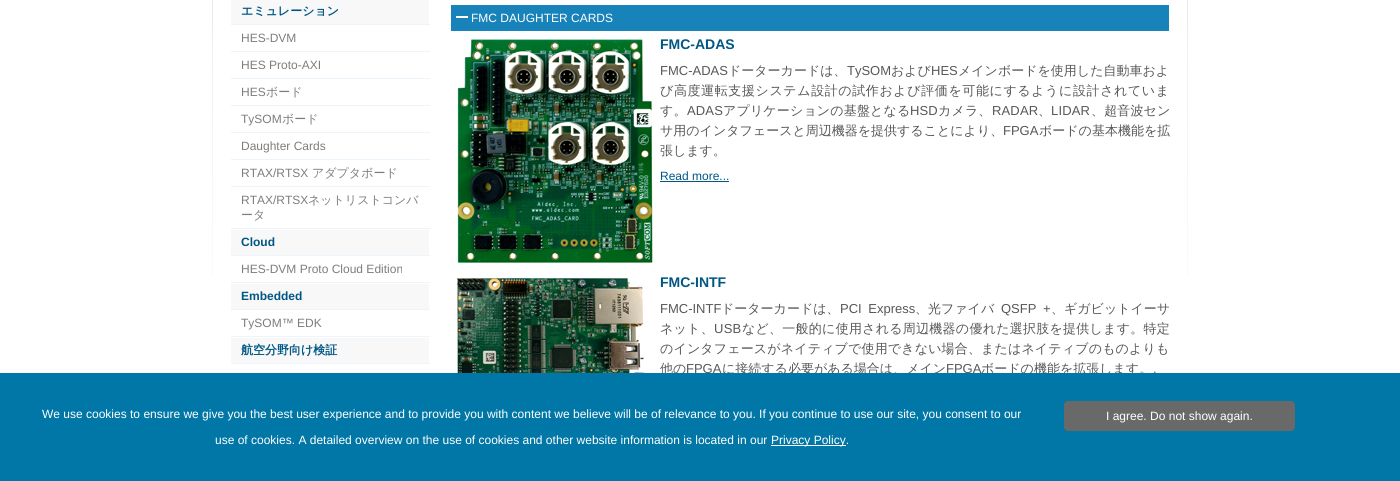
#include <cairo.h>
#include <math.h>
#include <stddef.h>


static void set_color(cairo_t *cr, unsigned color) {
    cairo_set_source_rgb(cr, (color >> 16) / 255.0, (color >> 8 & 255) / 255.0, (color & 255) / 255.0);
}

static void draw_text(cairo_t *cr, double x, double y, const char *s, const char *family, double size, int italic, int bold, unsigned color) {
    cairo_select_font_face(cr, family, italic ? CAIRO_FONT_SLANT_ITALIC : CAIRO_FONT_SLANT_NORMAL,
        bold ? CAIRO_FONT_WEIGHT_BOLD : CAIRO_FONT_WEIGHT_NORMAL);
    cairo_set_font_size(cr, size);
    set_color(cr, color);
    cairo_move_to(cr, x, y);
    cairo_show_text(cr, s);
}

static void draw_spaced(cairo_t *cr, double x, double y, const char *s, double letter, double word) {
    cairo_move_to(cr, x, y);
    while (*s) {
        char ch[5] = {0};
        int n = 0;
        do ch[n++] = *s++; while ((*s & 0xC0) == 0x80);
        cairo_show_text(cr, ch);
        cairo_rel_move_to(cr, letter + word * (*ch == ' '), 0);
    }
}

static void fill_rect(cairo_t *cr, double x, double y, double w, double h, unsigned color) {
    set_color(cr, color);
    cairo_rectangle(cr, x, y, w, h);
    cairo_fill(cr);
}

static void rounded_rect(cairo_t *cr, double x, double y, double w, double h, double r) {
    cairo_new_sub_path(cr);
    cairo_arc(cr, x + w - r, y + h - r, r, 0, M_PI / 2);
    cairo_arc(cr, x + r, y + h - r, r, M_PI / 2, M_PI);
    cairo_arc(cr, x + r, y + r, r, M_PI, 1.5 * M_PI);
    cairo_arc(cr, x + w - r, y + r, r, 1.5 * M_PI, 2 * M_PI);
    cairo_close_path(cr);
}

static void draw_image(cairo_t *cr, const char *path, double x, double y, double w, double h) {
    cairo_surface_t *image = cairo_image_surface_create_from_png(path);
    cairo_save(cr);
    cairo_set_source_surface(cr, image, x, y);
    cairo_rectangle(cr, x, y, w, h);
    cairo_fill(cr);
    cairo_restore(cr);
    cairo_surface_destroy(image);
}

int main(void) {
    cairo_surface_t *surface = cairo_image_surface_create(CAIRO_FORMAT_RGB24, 1400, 481);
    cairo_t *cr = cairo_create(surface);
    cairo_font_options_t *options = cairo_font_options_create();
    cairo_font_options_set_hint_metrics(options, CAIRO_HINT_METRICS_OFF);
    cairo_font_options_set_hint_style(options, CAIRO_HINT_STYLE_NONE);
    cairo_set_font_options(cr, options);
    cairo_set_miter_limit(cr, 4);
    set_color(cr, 0xFFFFFF);
    cairo_paint(cr);
    draw_image(cr, "assets/img1.png", 212, 0, 976, 276);
    fill_rect(cr, 231, 0, 198, 24, 0xF8F8F8);
    fill_rect(cr, 230, 24, 200, 1, 0xECF4FC);
    fill_rect(cr, 230, 24, 1, 1, 0xFFFFFF);
    draw_text(cr, 241, 15, "エミュレーション", "WenQuanYi Zen Hei", 12, 0, 1, 0x005784);
    fill_rect(cr, 230, 51, 200, 1, 0xECF4FC);
    fill_rect(cr, 230, 51, 1, 1, 0xFFFFFF);
    draw_text(cr, 241, 42, "HES-DVM", "Liberation Sans", 12, 0, 0, 0x7D7D7D);
    fill_rect(cr, 230, 78, 200, 1, 0xECF4FC);
    fill_rect(cr, 230, 78, 1, 1, 0xFFFFFF);
    draw_text(cr, 241, 69, "HES Proto-AXI", "Liberation Sans", 12, 0, 0, 0x7D7D7D);
    fill_rect(cr, 230, 105, 200, 1, 0xECF4FC);
    fill_rect(cr, 230, 105, 1, 1, 0xFFFFFF);
    draw_text(cr, 241, 96, "HES", "Liberation Sans", 12, 0, 0, 0x7D7D7D);
    draw_text(cr, 266, 96, "ボード", "WenQuanYi Zen Hei Medium", 12, 0, 0, 0x7D7D7D);
    fill_rect(cr, 230, 132, 200, 1, 0xECF4FC);
    fill_rect(cr, 230, 132, 1, 1, 0xFFFFFF);
    draw_text(cr, 241, 123, "TySOM", "Liberation Sans", 12, 0, 0, 0x7D7D7D);
    draw_text(cr, 282, 123, "ボード", "WenQuanYi Zen Hei Medium", 12, 0, 0, 0x7D7D7D);
    fill_rect(cr, 230, 159, 200, 1, 0xECF4FC);
    fill_rect(cr, 230, 159, 1, 1, 0xFFFFFF);
    draw_text(cr, 241, 150, "Daughter Cards", "Liberation Sans", 12, 0, 0, 0x7D7D7D);
    fill_rect(cr, 230, 186, 200, 1, 0xECF4FC);
    fill_rect(cr, 230, 186, 1, 1, 0xFFFFFF);
    draw_text(cr, 241, 177, "RTAX/RTSX", "Liberation Sans", 12, 0, 0, 0x7D7D7D);
    draw_text(cr, 312, 177, "アダプタボード", "WenQuanYi Zen Hei Medium", 12, 0, 0, 0x7D7D7D);
    fill_rect(cr, 230, 228, 200, 1, 0xECF4FC);
    fill_rect(cr, 230, 228, 1, 1, 0xFFFFFF);
    draw_text(cr, 241, 204, "RTAX/RTSX", "Liberation Sans", 12, 0, 0, 0x7D7D7D);
    draw_text(cr, 308, 204, "ネットリストコンバ", "WenQuanYi Zen Hei Medium", 12, 0, 0, 0x7D7D7D);
    draw_text(cr, 241, 219, "ータ", "WenQuanYi Zen Hei Medium", 12, 0, 0, 0x7D7D7D);
    fill_rect(cr, 231, 230, 198, 25, 0xF8F8F8);
    fill_rect(cr, 230, 255, 200, 1, 0xECF4FC);
    fill_rect(cr, 230, 255, 1, 1, 0xFFFFFF);
    draw_text(cr, 241, 246, "Cloud", "Liberation Sans", 12, 0, 1, 0x005784);
    fill_rect(cr, 230, 282, 200, 1, 0xECF4FC);
    fill_rect(cr, 230, 282, 1, 1, 0xFFFFFF);
    draw_text(cr, 241, 273, "HES-DVM Proto Cloud Edition", "Liberation Sans", 12, 0, 0, 0x7D7D7D);
    fill_rect(cr, 231, 284, 198, 25, 0xF8F8F8);
    fill_rect(cr, 230, 309, 200, 1, 0xECF4FC);
    fill_rect(cr, 230, 309, 1, 1, 0xFFFFFF);
    draw_text(cr, 241, 300, "Embedded", "Liberation Sans", 12, 0, 1, 0x005784);
    fill_rect(cr, 230, 336, 200, 1, 0xECF4FC);
    fill_rect(cr, 230, 336, 1, 1, 0xFFFFFF);
    draw_text(cr, 241, 327, "TySOM™ EDK", "Liberation Sans", 12, 0, 0, 0x7D7D7D);
    fill_rect(cr, 231, 338, 198, 25, 0xF8F8F8);
    fill_rect(cr, 230, 363, 200, 1, 0xECF4FC);
    fill_rect(cr, 230, 363, 1, 1, 0xFFFFFF);
    draw_text(cr, 241, 354, "航空分野向け検証", "WenQuanYi Zen Hei", 12, 0, 1, 0x005784);
    fill_rect(cr, 451, 5, 718, 26, 0x1783BA);
    fill_rect(cr, 456, 16, 12, 2, 0xFFFFFF);
    draw_text(cr, 471, 22, "FMC DAUGHTER CARDS", "Liberation Sans", 12, 0, 0, 0xFFFFFF);
    draw_image(cr, "assets/img2.png", 457, 37, 197, 226);
    draw_text(cr, 660, 49, "FMC-ADAS", "Liberation Sans", 14, 0, 1, 0x005784);
    draw_text(cr, 660, 75, "FMC-ADAS", "Liberation Sans", 13, 0, 0, 0x575757);
    draw_text(cr, 728, 75, "ドーターカードは、", "WenQuanYi Zen Hei Medium", 13, 0, 0, 0x575757);
    draw_text(cr, 847, 75, "TySOM", "Liberation Sans", 13, 0, 0, 0x575757);
    draw_text(cr, 891, 75, "および", "WenQuanYi Zen Hei Medium", 13, 0, 0, 0x575757);
    draw_text(cr, 931, 75, "HES", "Liberation Sans", 13, 0, 0, 0x575757);
    draw_text(cr, 958, 75, "メインボードを使用した自動車およ", "WenQuanYi Zen Hei Medium", 13, 0, 0, 0x575757);
    draw_spaced(cr, 660, 95, "び高度運転支援システム設計の試作および評価を可能にするように設計されていま", 0.6, 0);
    draw_spaced(cr, 660, 115, "す。", 0.15, 0);
    cairo_select_font_face(cr, "Liberation Sans", CAIRO_FONT_SLANT_NORMAL, CAIRO_FONT_WEIGHT_NORMAL);
    draw_spaced(cr, 687, 115, "ADAS", 0.15, 0);
    cairo_select_font_face(cr, "WenQuanYi Zen Hei Medium", CAIRO_FONT_SLANT_NORMAL, CAIRO_FONT_WEIGHT_NORMAL);
    draw_spaced(cr, 723, 115, "アプリケーションの基盤となる", 0.15, 0);
    cairo_select_font_face(cr, "Liberation Sans", CAIRO_FONT_SLANT_NORMAL, CAIRO_FONT_WEIGHT_NORMAL);
    draw_spaced(cr, 910, 115, "HSD", 0.15, 0);
    cairo_select_font_face(cr, "WenQuanYi Zen Hei Medium", CAIRO_FONT_SLANT_NORMAL, CAIRO_FONT_WEIGHT_NORMAL);
    draw_spaced(cr, 938, 115, "カメラ、", 0.15, 0);
    cairo_select_font_face(cr, "Liberation Sans", CAIRO_FONT_SLANT_NORMAL, CAIRO_FONT_WEIGHT_NORMAL);
    draw_spaced(cr, 992, 115, "RADAR", 0.15, 0);
    draw_spaced(cr, 1051, 115, "LIDAR", 0.15, 0);
    cairo_select_font_face(cr, "WenQuanYi Zen Hei Medium", CAIRO_FONT_SLANT_NORMAL, CAIRO_FONT_WEIGHT_NORMAL);
    draw_spaced(cr, 1091, 115, "、超音波セン", 0.15, 0);
    draw_spaced(cr, 1038, 115, "、", 0.15, 0);
    draw_text(cr, 660, 135, "サ用のインタフェースと周辺機器を提供することにより、", "WenQuanYi Zen Hei Medium", 13, 0, 0, 0x575757);
    draw_text(cr, 1003, 135, "FPGA", "Liberation Sans", 13, 0, 0, 0x575757);
    draw_text(cr, 1039, 135, "ボードの基本機能を拡", "WenQuanYi Zen Hei Medium", 13, 0, 0, 0x575757);
    draw_text(cr, 660, 155, "張します。", "WenQuanYi Zen Hei Medium", 13, 0, 0, 0x575757);
    draw_text(cr, 660, 180, "Read more...", "Liberation Sans", 12, 0, 0, 0x005784);
    fill_rect(cr, 660, 181, 69, 1, 0x005784);
    draw_image(cr, "assets/img3.png", 456, 276, 197, 97);
    draw_text(cr, 660, 287, "FMC-INTF", "Liberation Sans", 14, 0, 1, 0x005784);
    draw_text(cr, 660, 313, "FMC-INTF", "Liberation Sans", 13, 0, 0, 0x575757);
    draw_text(cr, 721, 313, "ドーターカードは、", "WenQuanYi Zen Hei Medium", 13, 0, 0, 0x575757);
    cairo_select_font_face(cr, "Liberation Sans", CAIRO_FONT_SLANT_NORMAL, CAIRO_FONT_WEIGHT_NORMAL);
    draw_spaced(cr, 840, 313, "PCI Express", 0, 3);
    draw_text(cr, 915, 313, "、光ファイバ", "WenQuanYi Zen Hei Medium", 13, 0, 0, 0x575757);
    cairo_select_font_face(cr, "Liberation Sans", CAIRO_FONT_SLANT_NORMAL, CAIRO_FONT_WEIGHT_NORMAL);
    draw_spaced(cr, 1001, 313, "QSFP +", 0, 3);
    draw_text(cr, 1051, 313, "、ギガビットイーサ", "WenQuanYi Zen Hei Medium", 13, 0, 0, 0x575757);
    draw_spaced(cr, 660, 333, "ネット、", 0.25, 0);
    cairo_select_font_face(cr, "Liberation Sans", CAIRO_FONT_SLANT_NORMAL, CAIRO_FONT_WEIGHT_NORMAL);
    draw_spaced(cr, 714, 333, "USB", 0.25, 0);
    cairo_select_font_face(cr, "WenQuanYi Zen Hei Medium", CAIRO_FONT_SLANT_NORMAL, CAIRO_FONT_WEIGHT_NORMAL);
    draw_spaced(cr, 742, 333, "など、一般的に使用される周辺機器の優れた選択肢を提供します。特定", 0.25, 0);
    draw_spaced(cr, 660, 353, "のインタフェースがネイティブで使用できない場合、またはネイティブのものよりも", 0.15, 0);
    draw_text(cr, 660, 373, "他の", "WenQuanYi Zen Hei Medium", 13, 0, 0, 0x575757);
    draw_text(cr, 686, 373, "FPGA", "Liberation Sans", 13, 0, 0, 0x575757);
    draw_text(cr, 722, 373, "に接続する必要がある場合は、メイン", "WenQuanYi Zen Hei Medium", 13, 0, 0, 0x575757);
    draw_text(cr, 946, 373, "FPGA", "Liberation Sans", 13, 0, 0, 0x575757);
    draw_text(cr, 981, 373, "ボードの機能を拡張します。", "WenQuanYi Zen Hei Medium", 13, 0, 0, 0x575757);
    draw_text(cr, 1153, 373, ".", "Liberation Sans", 13, 0, 0, 0x575757);
    fill_rect(cr, 0, 373, 1400, 108, 0x0077A6);
    draw_text(cr, 42, 418, "We use cookies to ensure we give you the best user experience and to provide you with content we believe will be of relevance to you. If you continue to use our site, you consent to our", "Liberation Sans", 12, 0, 0, 0xFFFFFF);
    draw_text(cr, 215, 444, "use of cookies. A detailed overview on the use of cookies and other website information is located in our", "Liberation Sans", 12, 0, 0, 0xFFFFFF);
    fill_rect(cr, 771, 445, 75, 1, 0xFFFFFF);
    draw_text(cr, 771, 444, "Privacy Policy.", "Liberation Sans", 12, 0, 0, 0xFFFFFF);
    set_color(cr, 0x696969);
    rounded_rect(cr, 1064, 401, 231, 30, 4);
    cairo_fill(cr);
    draw_text(cr, 1106, 420, "I agree. Do not show again.", "Liberation Sans", 12, 0, 0, 0xFFFFFF);
    cairo_surface_write_to_png(surface, "output.png");
    cairo_font_options_destroy(options);
    cairo_destroy(cr);
    cairo_surface_destroy(surface);
    return 0;
}
